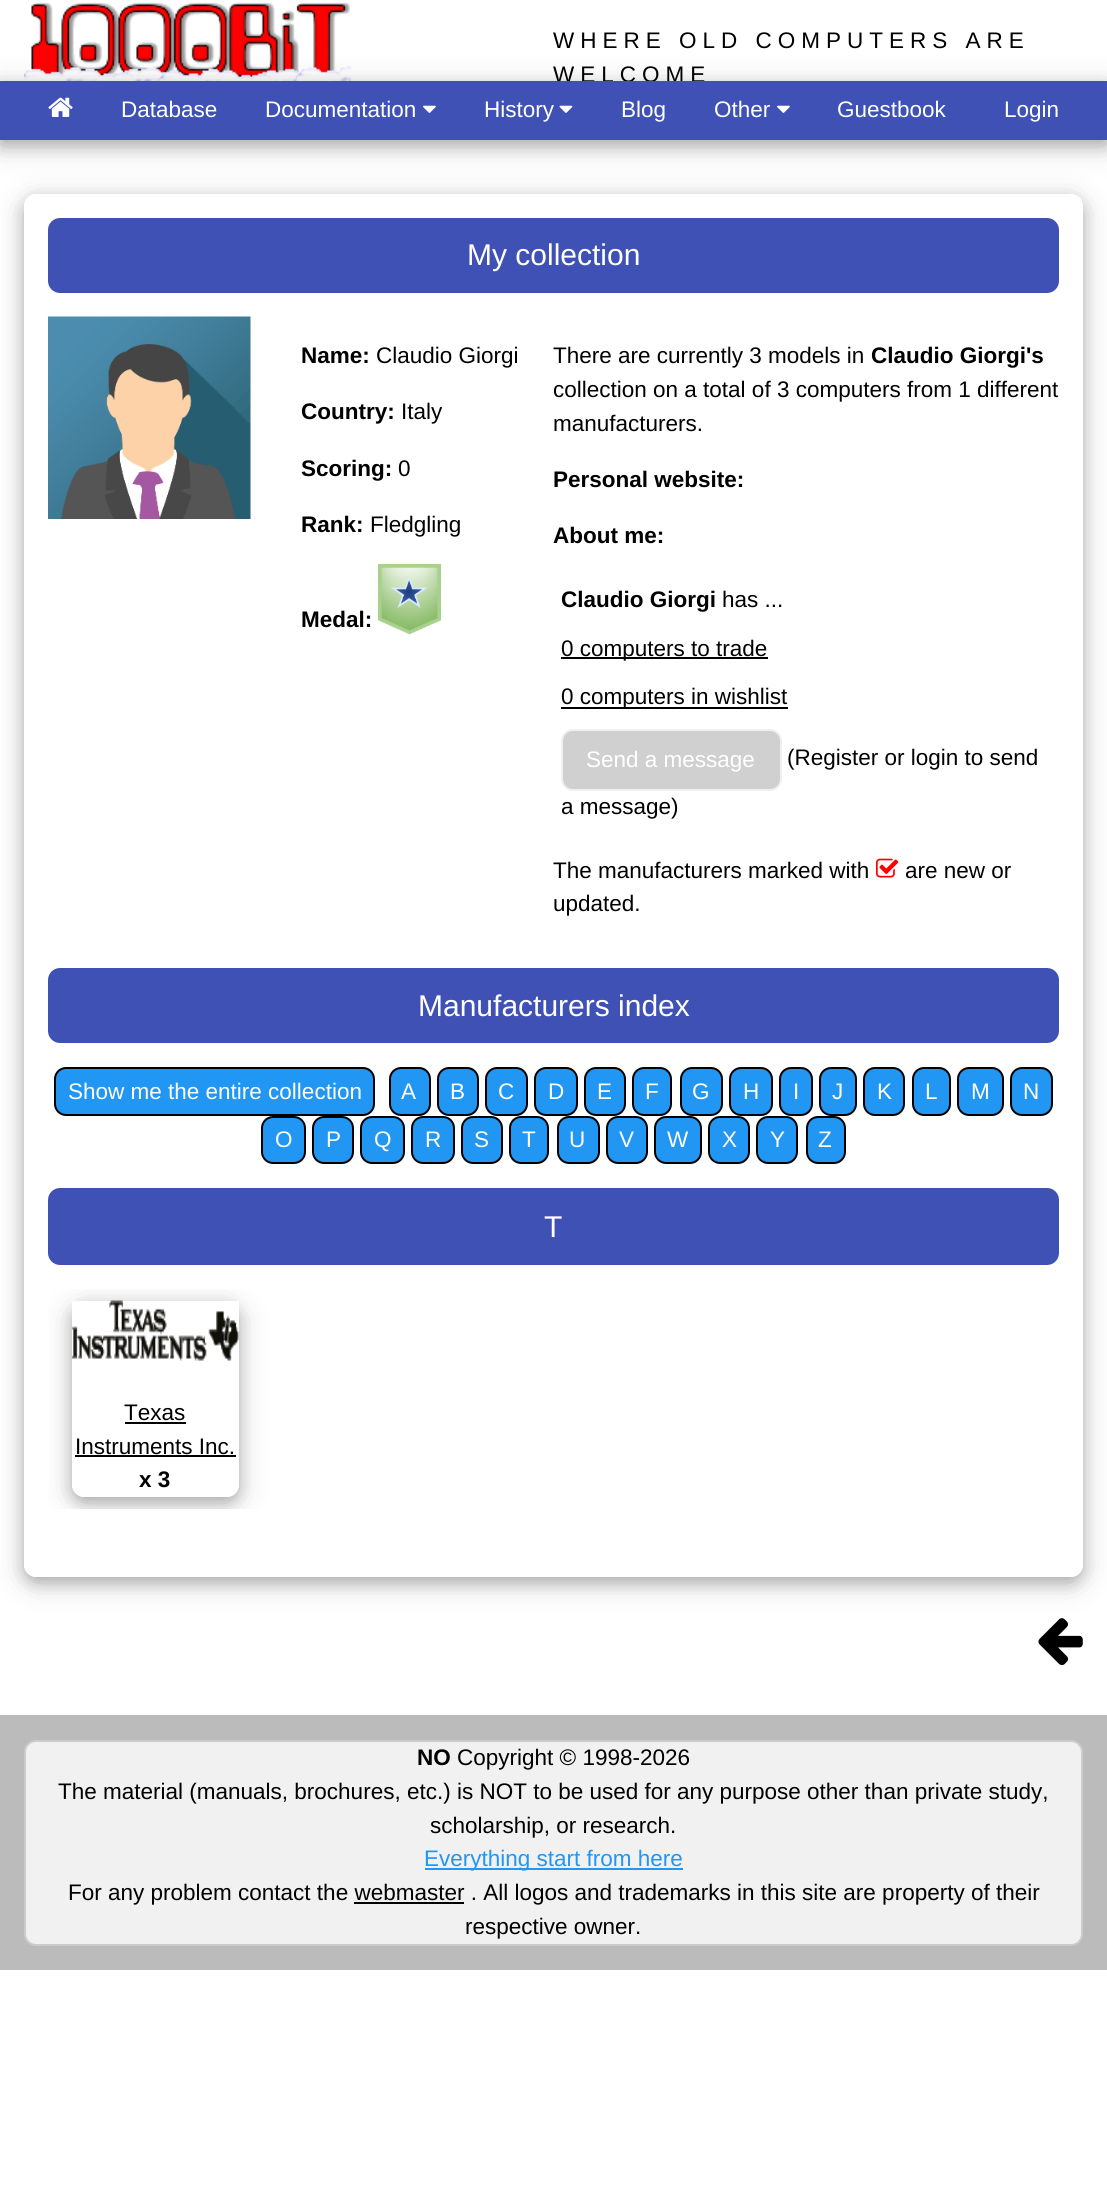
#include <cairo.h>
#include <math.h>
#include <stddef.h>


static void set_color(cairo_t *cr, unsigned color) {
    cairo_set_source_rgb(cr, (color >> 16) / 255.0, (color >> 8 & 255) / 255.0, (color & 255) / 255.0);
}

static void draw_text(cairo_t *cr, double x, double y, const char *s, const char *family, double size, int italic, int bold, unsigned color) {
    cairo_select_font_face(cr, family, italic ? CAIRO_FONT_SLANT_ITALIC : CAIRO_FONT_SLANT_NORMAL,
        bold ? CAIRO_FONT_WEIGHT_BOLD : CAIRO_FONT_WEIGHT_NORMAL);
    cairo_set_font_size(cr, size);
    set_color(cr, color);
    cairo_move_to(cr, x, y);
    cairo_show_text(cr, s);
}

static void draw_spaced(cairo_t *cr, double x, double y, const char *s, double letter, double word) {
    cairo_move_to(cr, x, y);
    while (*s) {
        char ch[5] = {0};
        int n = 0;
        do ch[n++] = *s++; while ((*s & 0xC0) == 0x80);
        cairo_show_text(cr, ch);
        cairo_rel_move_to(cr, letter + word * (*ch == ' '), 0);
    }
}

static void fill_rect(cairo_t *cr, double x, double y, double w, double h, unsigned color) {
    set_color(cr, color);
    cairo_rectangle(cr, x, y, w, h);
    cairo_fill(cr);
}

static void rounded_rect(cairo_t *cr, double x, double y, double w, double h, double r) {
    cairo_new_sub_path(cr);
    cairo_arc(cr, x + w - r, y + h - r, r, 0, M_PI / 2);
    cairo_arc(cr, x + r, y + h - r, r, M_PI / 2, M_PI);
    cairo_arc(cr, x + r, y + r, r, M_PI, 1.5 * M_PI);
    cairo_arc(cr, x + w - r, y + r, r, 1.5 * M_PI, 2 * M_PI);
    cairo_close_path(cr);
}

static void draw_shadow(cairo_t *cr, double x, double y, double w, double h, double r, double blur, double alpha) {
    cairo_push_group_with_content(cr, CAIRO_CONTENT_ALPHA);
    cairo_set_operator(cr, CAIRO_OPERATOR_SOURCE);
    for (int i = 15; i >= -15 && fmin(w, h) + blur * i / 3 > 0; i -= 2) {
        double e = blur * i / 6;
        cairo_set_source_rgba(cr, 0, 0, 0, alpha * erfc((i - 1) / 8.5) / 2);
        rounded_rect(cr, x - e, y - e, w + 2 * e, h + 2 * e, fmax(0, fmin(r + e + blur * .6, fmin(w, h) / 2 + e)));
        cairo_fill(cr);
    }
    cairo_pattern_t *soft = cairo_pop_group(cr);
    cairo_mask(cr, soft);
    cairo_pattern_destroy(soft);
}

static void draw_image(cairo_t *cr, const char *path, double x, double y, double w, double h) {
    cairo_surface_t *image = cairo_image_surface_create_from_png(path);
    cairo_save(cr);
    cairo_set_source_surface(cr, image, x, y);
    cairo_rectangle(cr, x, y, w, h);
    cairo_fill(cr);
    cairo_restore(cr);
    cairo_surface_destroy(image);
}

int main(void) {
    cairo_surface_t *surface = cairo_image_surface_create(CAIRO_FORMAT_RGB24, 1107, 2197);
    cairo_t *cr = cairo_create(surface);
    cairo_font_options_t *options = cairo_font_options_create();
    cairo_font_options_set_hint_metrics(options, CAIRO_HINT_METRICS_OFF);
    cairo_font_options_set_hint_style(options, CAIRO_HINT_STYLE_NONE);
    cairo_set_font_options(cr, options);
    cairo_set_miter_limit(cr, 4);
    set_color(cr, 0xFFFFFF);
    cairo_paint(cr);
    draw_image(cr, "assets/img1.png", 24, 2, 327, 79);
    cairo_select_font_face(cr, "Liberation Sans", CAIRO_FONT_SLANT_NORMAL, CAIRO_FONT_WEIGHT_NORMAL);
    cairo_set_font_size(cr, 22.5);
    set_color(cr, 0x000000);
    draw_spaced(cr, 553, 48, "WHERE OLD COMPUTERS ARE", 6, 0);
    draw_spaced(cr, 553, 82, "WELCOME", 6, 0);
    set_color(cr, 0x000000);
    draw_shadow(cr, 0, 87, 1107, 59, 0, 15, 0.19);
    draw_shadow(cr, 0, 87, 1107, 59, 0, 7.5, 0.2);
    fill_rect(cr, 0, 81, 1107, 59, 0x3F51B5);
    draw_image(cr, "assets/img2.png", 48, 97, 25, 20);
    draw_text(cr, 121, 117, "Database", "Liberation Sans", 22.5, 0, 0, 0xFFFFFF);
    draw_text(cr, 265, 117, "Documentation", "Liberation Sans", 22.5, 0, 0, 0xFFFFFF);
    draw_image(cr, "assets/img3.png", 423, 105, 13, 8);
    draw_text(cr, 484, 117, "History", "Liberation Sans", 22.5, 0, 0, 0xFFFFFF);
    draw_image(cr, "assets/img4.png", 559, 105, 14, 8);
    draw_text(cr, 621, 117, "Blog", "Liberation Sans", 22.5, 0, 0, 0xFFFFFF);
    draw_text(cr, 714, 117, "Other", "Liberation Sans", 22.5, 0, 0, 0xFFFFFF);
    draw_image(cr, "assets/img3.png", 777, 105, 13, 8);
    draw_text(cr, 837, 117, "Guestbook", "Liberation Sans", 22.5, 0, 0, 0xFFFFFF);
    draw_text(cr, 1004, 117, "Login", "Liberation Sans", 22.5, 0, 0, 0xFFFFFF);
    cairo_save(cr);
    cairo_set_fill_rule(cr, CAIRO_FILL_RULE_EVEN_ODD);
    cairo_new_path(cr);
    cairo_move_to(cr, 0, 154);
    cairo_line_to(cr, 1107, 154);
    cairo_line_to(cr, 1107, 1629);
    cairo_line_to(cr, 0, 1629);
    cairo_close_path(cr);
    cairo_move_to(cr, 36, 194);
    cairo_line_to(cr, 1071, 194);
    cairo_curve_to(cr, 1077.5, 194, 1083, 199.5, 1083, 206);
    cairo_line_to(cr, 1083, 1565);
    cairo_curve_to(cr, 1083, 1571.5, 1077.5, 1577, 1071, 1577);
    cairo_line_to(cr, 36, 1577);
    cairo_curve_to(cr, 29.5, 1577, 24, 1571.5, 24, 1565);
    cairo_line_to(cr, 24, 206);
    cairo_curve_to(cr, 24, 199.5, 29.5, 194, 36, 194);
    cairo_close_path(cr);
    cairo_clip(cr);
    set_color(cr, 0x000000);
    draw_shadow(cr, 24, 200, 1059, 1383, 12, 15, 0.19);
    cairo_restore(cr);
    cairo_save(cr);
    cairo_set_fill_rule(cr, CAIRO_FILL_RULE_EVEN_ODD);
    cairo_new_path(cr);
    cairo_move_to(cr, 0, 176);
    cairo_line_to(cr, 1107, 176);
    cairo_line_to(cr, 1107, 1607);
    cairo_line_to(cr, 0, 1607);
    cairo_close_path(cr);
    cairo_move_to(cr, 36, 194);
    cairo_line_to(cr, 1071, 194);
    cairo_curve_to(cr, 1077.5, 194, 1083, 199.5, 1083, 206);
    cairo_line_to(cr, 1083, 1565);
    cairo_curve_to(cr, 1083, 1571.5, 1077.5, 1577, 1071, 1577);
    cairo_line_to(cr, 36, 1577);
    cairo_curve_to(cr, 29.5, 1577, 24, 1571.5, 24, 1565);
    cairo_line_to(cr, 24, 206);
    cairo_curve_to(cr, 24, 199.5, 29.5, 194, 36, 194);
    cairo_close_path(cr);
    cairo_clip(cr);
    set_color(cr, 0x000000);
    draw_shadow(cr, 24, 200, 1059, 1383, 12, 7.5, 0.2);
    cairo_restore(cr);
    set_color(cr, 0x3F51B5);
    rounded_rect(cr, 48, 218, 1011, 75, 12);
    cairo_fill(cr);
    draw_text(cr, 467, 265, "My collection", "Liberation Sans", 30, 0, 0, 0xFFFFFF);
    draw_image(cr, "assets/img5.png", 48, 316, 203, 203);
    draw_text(cr, 301, 363, "Name:", "Liberation Sans", 22.5, 0, 1, 0x000000);
    draw_text(cr, 376, 363, "Claudio Giorgi", "Liberation Sans", 22.5, 0, 0, 0x000000);
    draw_text(cr, 301, 419, "Country:", "Liberation Sans", 22.5, 0, 1, 0x000000);
    draw_text(cr, 401, 419, "Italy", "Liberation Sans", 22.5, 0, 0, 0x000000);
    draw_text(cr, 301, 476, "Scoring:", "Liberation Sans", 22.5, 0, 1, 0x000000);
    draw_text(cr, 398, 476, "0", "Liberation Sans", 22.5, 0, 0, 0x000000);
    draw_text(cr, 301, 532, "Rank:", "Liberation Sans", 22.5, 0, 1, 0x000000);
    draw_text(cr, 370, 532, "Fledgling", "Liberation Sans", 22.5, 0, 0, 0x000000);
    draw_text(cr, 301, 627, "Medal:", "Liberation Sans", 22.5, 0, 1, 0x000000);
    draw_image(cr, "assets/img6.png", 378, 564, 63, 71);
    draw_text(cr, 553, 363, "There are currently 3 models in", "Liberation Sans", 22.5, 0, 0, 0x000000);
    draw_text(cr, 871, 363, "Claudio Giorgi's", "Liberation Sans", 22.5, 0, 1, 0x000000);
    draw_text(cr, 553, 397, "collection on a total of 3 computers from 1 different", "Liberation Sans", 22.5, 0, 0, 0x000000);
    draw_text(cr, 553, 431, "manufacturers.", "Liberation Sans", 22.5, 0, 0, 0x000000);
    draw_text(cr, 553, 487, "Personal website:", "Liberation Sans", 22.5, 0, 1, 0x000000);
    draw_text(cr, 553, 543, "About me:", "Liberation Sans", 22.5, 0, 1, 0x000000);
    draw_text(cr, 561, 607, "Claudio Giorgi", "Liberation Sans", 22.5, 0, 1, 0x000000);
    draw_text(cr, 722, 607, "has ...", "Liberation Sans", 22.5, 0, 0, 0x000000);
    fill_rect(cr, 561, 657, 207, 2, 0x000000);
    draw_text(cr, 561, 656, "0 computers to trade", "Liberation Sans", 22.5, 0, 0, 0x000000);
    fill_rect(cr, 561, 707, 227, 2, 0x000000);
    draw_text(cr, 561, 704, "0 computers in wishlist", "Liberation Sans", 22.5, 0, 0, 0x000000);
    set_color(cr, 0xD0D0D0);
    rounded_rect(cr, 562, 730, 219, 60, 11);
    cairo_fill_preserve(cr);
    set_color(cr, 0xF0F0F0);
    cairo_stroke(cr);
    draw_text(cr, 586, 767, "Send a message", "Liberation Sans", 22.5, 0, 0, 0xFFFFFF);
    draw_text(cr, 787, 765, "(Register or login to send", "Liberation Sans", 22.5, 0, 0, 0x000000);
    draw_text(cr, 561, 814, "a message)", "Liberation Sans", 22.5, 0, 0, 0x000000);
    draw_text(cr, 553, 878, "The manufacturers marked with", "Liberation Sans", 22.5, 0, 0, 0x000000);
    draw_image(cr, "assets/img7.png", 876, 858, 23, 20);
    draw_text(cr, 905, 878, "are new or", "Liberation Sans", 22.5, 0, 0, 0x000000);
    draw_text(cr, 553, 911, "updated.", "Liberation Sans", 22.5, 0, 0, 0x000000);
    set_color(cr, 0x3F51B5);
    rounded_rect(cr, 48, 968, 1011, 75, 12);
    cairo_fill(cr);
    draw_text(cr, 418, 1016, "Manufacturers index", "Liberation Sans", 30, 0, 0, 0xFFFFFF);
    set_color(cr, 0x2196F3);
    rounded_rect(cr, 55, 1068, 319, 47, 11);
    cairo_fill_preserve(cr);
    set_color(cr, 0x000000);
    cairo_stroke(cr);
    draw_text(cr, 68, 1099, "Show me the entire collection", "Liberation Sans", 22.5, 0, 0, 0xFFFFFF);
    set_color(cr, 0x2196F3);
    rounded_rect(cr, 390, 1068, 40, 47, 11);
    cairo_fill_preserve(cr);
    set_color(cr, 0x000000);
    cairo_stroke(cr);
    draw_text(cr, 401, 1099, "A", "Liberation Sans", 22.5, 0, 0, 0xFFFFFF);
    set_color(cr, 0x2196F3);
    rounded_rect(cr, 438, 1068, 40, 47, 11);
    cairo_fill_preserve(cr);
    set_color(cr, 0x000000);
    cairo_stroke(cr);
    draw_text(cr, 450, 1099, "B", "Liberation Sans", 22.5, 0, 0, 0xFFFFFF);
    set_color(cr, 0x2196F3);
    rounded_rect(cr, 486, 1068, 41, 47, 11);
    cairo_fill_preserve(cr);
    set_color(cr, 0x000000);
    cairo_stroke(cr);
    draw_text(cr, 498, 1099, "C", "Liberation Sans", 22.5, 0, 0, 0xFFFFFF);
    set_color(cr, 0x2196F3);
    rounded_rect(cr, 535, 1068, 42, 47, 11);
    cairo_fill_preserve(cr);
    set_color(cr, 0x000000);
    cairo_stroke(cr);
    draw_text(cr, 548, 1099, "D", "Liberation Sans", 22.5, 0, 0, 0xFFFFFF);
    set_color(cr, 0x2196F3);
    rounded_rect(cr, 585, 1068, 40, 47, 11);
    cairo_fill_preserve(cr);
    set_color(cr, 0x000000);
    cairo_stroke(cr);
    draw_text(cr, 597, 1099, "E", "Liberation Sans", 22.5, 0, 0, 0xFFFFFF);
    set_color(cr, 0x2196F3);
    rounded_rect(cr, 633, 1068, 38, 47, 11);
    cairo_fill_preserve(cr);
    set_color(cr, 0x000000);
    cairo_stroke(cr);
    draw_text(cr, 645, 1099, "F", "Liberation Sans", 22.5, 0, 0, 0xFFFFFF);
    set_color(cr, 0x2196F3);
    rounded_rect(cr, 681, 1068, 41, 47, 11);
    cairo_fill_preserve(cr);
    set_color(cr, 0x000000);
    cairo_stroke(cr);
    draw_text(cr, 692, 1099, "G", "Liberation Sans", 22.5, 0, 0, 0xFFFFFF);
    set_color(cr, 0x2196F3);
    rounded_rect(cr, 730, 1068, 42, 47, 11);
    cairo_fill_preserve(cr);
    set_color(cr, 0x000000);
    cairo_stroke(cr);
    draw_text(cr, 743, 1099, "H", "Liberation Sans", 22.5, 0, 0, 0xFFFFFF);
    set_color(cr, 0x2196F3);
    rounded_rect(cr, 780, 1068, 32, 47, 11);
    cairo_fill_preserve(cr);
    set_color(cr, 0x000000);
    cairo_stroke(cr);
    draw_text(cr, 793, 1099, "I", "Liberation Sans", 22.5, 0, 0, 0xFFFFFF);
    set_color(cr, 0x2196F3);
    rounded_rect(cr, 820, 1068, 36, 47, 11);
    cairo_fill_preserve(cr);
    set_color(cr, 0x000000);
    cairo_stroke(cr);
    draw_text(cr, 832, 1099, "J", "Liberation Sans", 22.5, 0, 0, 0xFFFFFF);
    set_color(cr, 0x2196F3);
    rounded_rect(cr, 864, 1068, 40, 47, 11);
    cairo_fill_preserve(cr);
    set_color(cr, 0x000000);
    cairo_stroke(cr);
    draw_text(cr, 877, 1099, "K", "Liberation Sans", 22.5, 0, 0, 0xFFFFFF);
    set_color(cr, 0x2196F3);
    rounded_rect(cr, 913, 1068, 37, 47, 11);
    cairo_fill_preserve(cr);
    set_color(cr, 0x000000);
    cairo_stroke(cr);
    draw_text(cr, 925, 1099, "L", "Liberation Sans", 22.5, 0, 0, 0xFFFFFF);
    set_color(cr, 0x2196F3);
    rounded_rect(cr, 958, 1068, 45, 47, 11);
    cairo_fill_preserve(cr);
    set_color(cr, 0x000000);
    cairo_stroke(cr);
    draw_text(cr, 971, 1099, "M", "Liberation Sans", 22.5, 0, 0, 0xFFFFFF);
    set_color(cr, 0x2196F3);
    rounded_rect(cr, 1011, 1068, 41, 47, 11);
    cairo_fill_preserve(cr);
    set_color(cr, 0x000000);
    cairo_stroke(cr);
    draw_text(cr, 1023, 1099, "N", "Liberation Sans", 22.5, 0, 0, 0xFFFFFF);
    set_color(cr, 0x2196F3);
    rounded_rect(cr, 262, 1117, 43, 46, 11);
    cairo_fill_preserve(cr);
    set_color(cr, 0x000000);
    cairo_stroke(cr);
    draw_text(cr, 275, 1147, "O", "Liberation Sans", 22.5, 0, 0, 0xFFFFFF);
    set_color(cr, 0x2196F3);
    rounded_rect(cr, 313, 1117, 40, 46, 11);
    cairo_fill_preserve(cr);
    set_color(cr, 0x000000);
    cairo_stroke(cr);
    draw_text(cr, 326, 1147, "P", "Liberation Sans", 22.5, 0, 0, 0xFFFFFF);
    set_color(cr, 0x2196F3);
    rounded_rect(cr, 361, 1117, 43, 46, 11);
    cairo_fill_preserve(cr);
    set_color(cr, 0x000000);
    cairo_stroke(cr);
    draw_text(cr, 374, 1147, "Q", "Liberation Sans", 22.5, 0, 0, 0xFFFFFF);
    set_color(cr, 0x2196F3);
    rounded_rect(cr, 412, 1117, 42, 46, 11);
    cairo_fill_preserve(cr);
    set_color(cr, 0x000000);
    cairo_stroke(cr);
    draw_text(cr, 425, 1147, "R", "Liberation Sans", 22.5, 0, 0, 0xFFFFFF);
    set_color(cr, 0x2196F3);
    rounded_rect(cr, 462, 1117, 40, 46, 11);
    cairo_fill_preserve(cr);
    set_color(cr, 0x000000);
    cairo_stroke(cr);
    draw_text(cr, 474, 1147, "S", "Liberation Sans", 22.5, 0, 0, 0xFFFFFF);
    set_color(cr, 0x2196F3);
    rounded_rect(cr, 510, 1117, 38, 46, 11);
    cairo_fill_preserve(cr);
    set_color(cr, 0x000000);
    cairo_stroke(cr);
    draw_text(cr, 522, 1147, "T", "Liberation Sans", 22.5, 0, 0, 0xFFFFFF);
    set_color(cr, 0x2196F3);
    rounded_rect(cr, 558, 1117, 41, 46, 11);
    cairo_fill_preserve(cr);
    set_color(cr, 0x000000);
    cairo_stroke(cr);
    draw_text(cr, 569, 1147, "U", "Liberation Sans", 22.5, 0, 0, 0xFFFFFF);
    set_color(cr, 0x2196F3);
    rounded_rect(cr, 607, 1117, 40, 46, 11);
    cairo_fill_preserve(cr);
    set_color(cr, 0x000000);
    cairo_stroke(cr);
    draw_text(cr, 619, 1147, "V", "Liberation Sans", 22.5, 0, 0, 0xFFFFFF);
    set_color(cr, 0x2196F3);
    rounded_rect(cr, 655, 1117, 46, 46, 11);
    cairo_fill_preserve(cr);
    set_color(cr, 0x000000);
    cairo_stroke(cr);
    draw_text(cr, 667, 1147, "W", "Liberation Sans", 22.5, 0, 0, 0xFFFFFF);
    set_color(cr, 0x2196F3);
    rounded_rect(cr, 709, 1117, 40, 46, 11);
    cairo_fill_preserve(cr);
    set_color(cr, 0x000000);
    cairo_stroke(cr);
    draw_text(cr, 722, 1147, "X", "Liberation Sans", 22.5, 0, 0, 0xFFFFFF);
    set_color(cr, 0x2196F3);
    rounded_rect(cr, 757, 1117, 40, 46, 11);
    cairo_fill_preserve(cr);
    set_color(cr, 0x000000);
    cairo_stroke(cr);
    draw_text(cr, 770, 1147, "Y", "Liberation Sans", 22.5, 0, 0, 0xFFFFFF);
    set_color(cr, 0x2196F3);
    rounded_rect(cr, 807, 1117, 38, 46, 11);
    cairo_fill_preserve(cr);
    set_color(cr, 0x000000);
    cairo_stroke(cr);
    draw_text(cr, 818, 1147, "Z", "Liberation Sans", 22.5, 0, 0, 0xFFFFFF);
    set_color(cr, 0x3F51B5);
    rounded_rect(cr, 48, 1188, 1011, 77, 12);
    cairo_fill(cr);
    draw_text(cr, 544, 1237, "T", "Liberation Sans", 30, 0, 0, 0xFFFFFF);
    cairo_save(cr);
    cairo_rectangle(cr, 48, 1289, 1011, 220);
    cairo_clip(cr);
    cairo_set_fill_rule(cr, CAIRO_FILL_RULE_EVEN_ODD);
    cairo_new_path(cr);
    cairo_move_to(cr, 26, 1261);
    cairo_line_to(cr, 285, 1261);
    cairo_line_to(cr, 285, 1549);
    cairo_line_to(cr, 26, 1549);
    cairo_close_path(cr);
    cairo_move_to(cr, 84, 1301);
    cairo_line_to(cr, 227, 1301);
    cairo_curve_to(cr, 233.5, 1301, 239, 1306.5, 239, 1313);
    cairo_line_to(cr, 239, 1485);
    cairo_curve_to(cr, 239, 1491.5, 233.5, 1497, 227, 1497);
    cairo_line_to(cr, 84, 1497);
    cairo_curve_to(cr, 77.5, 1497, 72, 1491.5, 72, 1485);
    cairo_line_to(cr, 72, 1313);
    cairo_curve_to(cr, 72, 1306.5, 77.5, 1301, 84, 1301);
    cairo_close_path(cr);
    cairo_clip(cr);
    set_color(cr, 0x000000);
    draw_shadow(cr, 72, 1307, 167, 196, 12, 15, 0.19);
    cairo_restore(cr);
    cairo_save(cr);
    cairo_rectangle(cr, 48, 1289, 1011, 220);
    cairo_clip(cr);
    cairo_set_fill_rule(cr, CAIRO_FILL_RULE_EVEN_ODD);
    cairo_new_path(cr);
    cairo_move_to(cr, 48, 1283);
    cairo_line_to(cr, 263, 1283);
    cairo_line_to(cr, 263, 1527);
    cairo_line_to(cr, 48, 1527);
    cairo_close_path(cr);
    cairo_move_to(cr, 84, 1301);
    cairo_line_to(cr, 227, 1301);
    cairo_curve_to(cr, 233.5, 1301, 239, 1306.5, 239, 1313);
    cairo_line_to(cr, 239, 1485);
    cairo_curve_to(cr, 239, 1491.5, 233.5, 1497, 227, 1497);
    cairo_line_to(cr, 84, 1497);
    cairo_curve_to(cr, 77.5, 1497, 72, 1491.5, 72, 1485);
    cairo_line_to(cr, 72, 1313);
    cairo_curve_to(cr, 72, 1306.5, 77.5, 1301, 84, 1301);
    cairo_close_path(cr);
    cairo_clip(cr);
    set_color(cr, 0x000000);
    draw_shadow(cr, 72, 1307, 167, 196, 12, 7.5, 0.2);
    cairo_restore(cr);
    fill_rect(cr, 72, 1301, 167, 61, 0xFFFFFF);
    draw_image(cr, "assets/img8.png", 72, 1300, 167, 61);
    draw_text(cr, 124, 1420, "Texas", "Liberation Sans", 22.5, 0, 0, 0x000000);
    fill_rect(cr, 125, 1422, 61, 2, 0x000000);
    draw_text(cr, 75, 1454, "Instruments Inc.", "Liberation Sans", 22.5, 0, 0, 0x000000);
    fill_rect(cr, 75, 1455, 161, 2, 0x000000);
    draw_text(cr, 139, 1487, "x 3", "Liberation Sans", 22.5, 0, 1, 0x000000);
    draw_image(cr, "assets/img9.png", 1038, 1618, 45, 48);
    fill_rect(cr, 0, 1715, 1107, 255, 0xBBBBBB);
    set_color(cr, 0xF1F1F1);
    rounded_rect(cr, 25, 1741, 1057, 204, 11);
    cairo_fill_preserve(cr);
    set_color(cr, 0xCCCCCC);
    cairo_stroke(cr);
    draw_text(cr, 417, 1765, "NO", "Liberation Sans", 22.5, 0, 1, 0x000000);
    draw_text(cr, 457, 1765, "Copyright © 1998-2026", "Liberation Sans", 22.5, 0, 0, 0x000000);
    draw_text(cr, 58, 1799, "The material (manuals, brochures, etc.) is NOT to be used for any purpose other than private study,", "Liberation Sans", 22.5, 0, 0, 0x000000);
    draw_text(cr, 430, 1833, "scholarship, or research.", "Liberation Sans", 22.5, 0, 0, 0x000000);
    fill_rect(cr, 425, 1868, 258, 2, 0x2196F3);
    draw_text(cr, 424, 1866, "Everything start from here", "Liberation Sans", 22.5, 0, 0, 0x2196F3);
    draw_text(cr, 68, 1900, "For any problem contact the webmaster . All logos and trademarks in this site are property of their", "Liberation Sans", 22.5, 0, 0, 0x000000);
    fill_rect(cr, 354, 1902, 110, 2, 0x000000);
    draw_text(cr, 465, 1934, "respective owner.", "Liberation Sans", 22.5, 0, 0, 0x000000);
    cairo_surface_write_to_png(surface, "output.png");
    cairo_font_options_destroy(options);
    cairo_destroy(cr);
    cairo_surface_destroy(surface);
    return 0;
}
